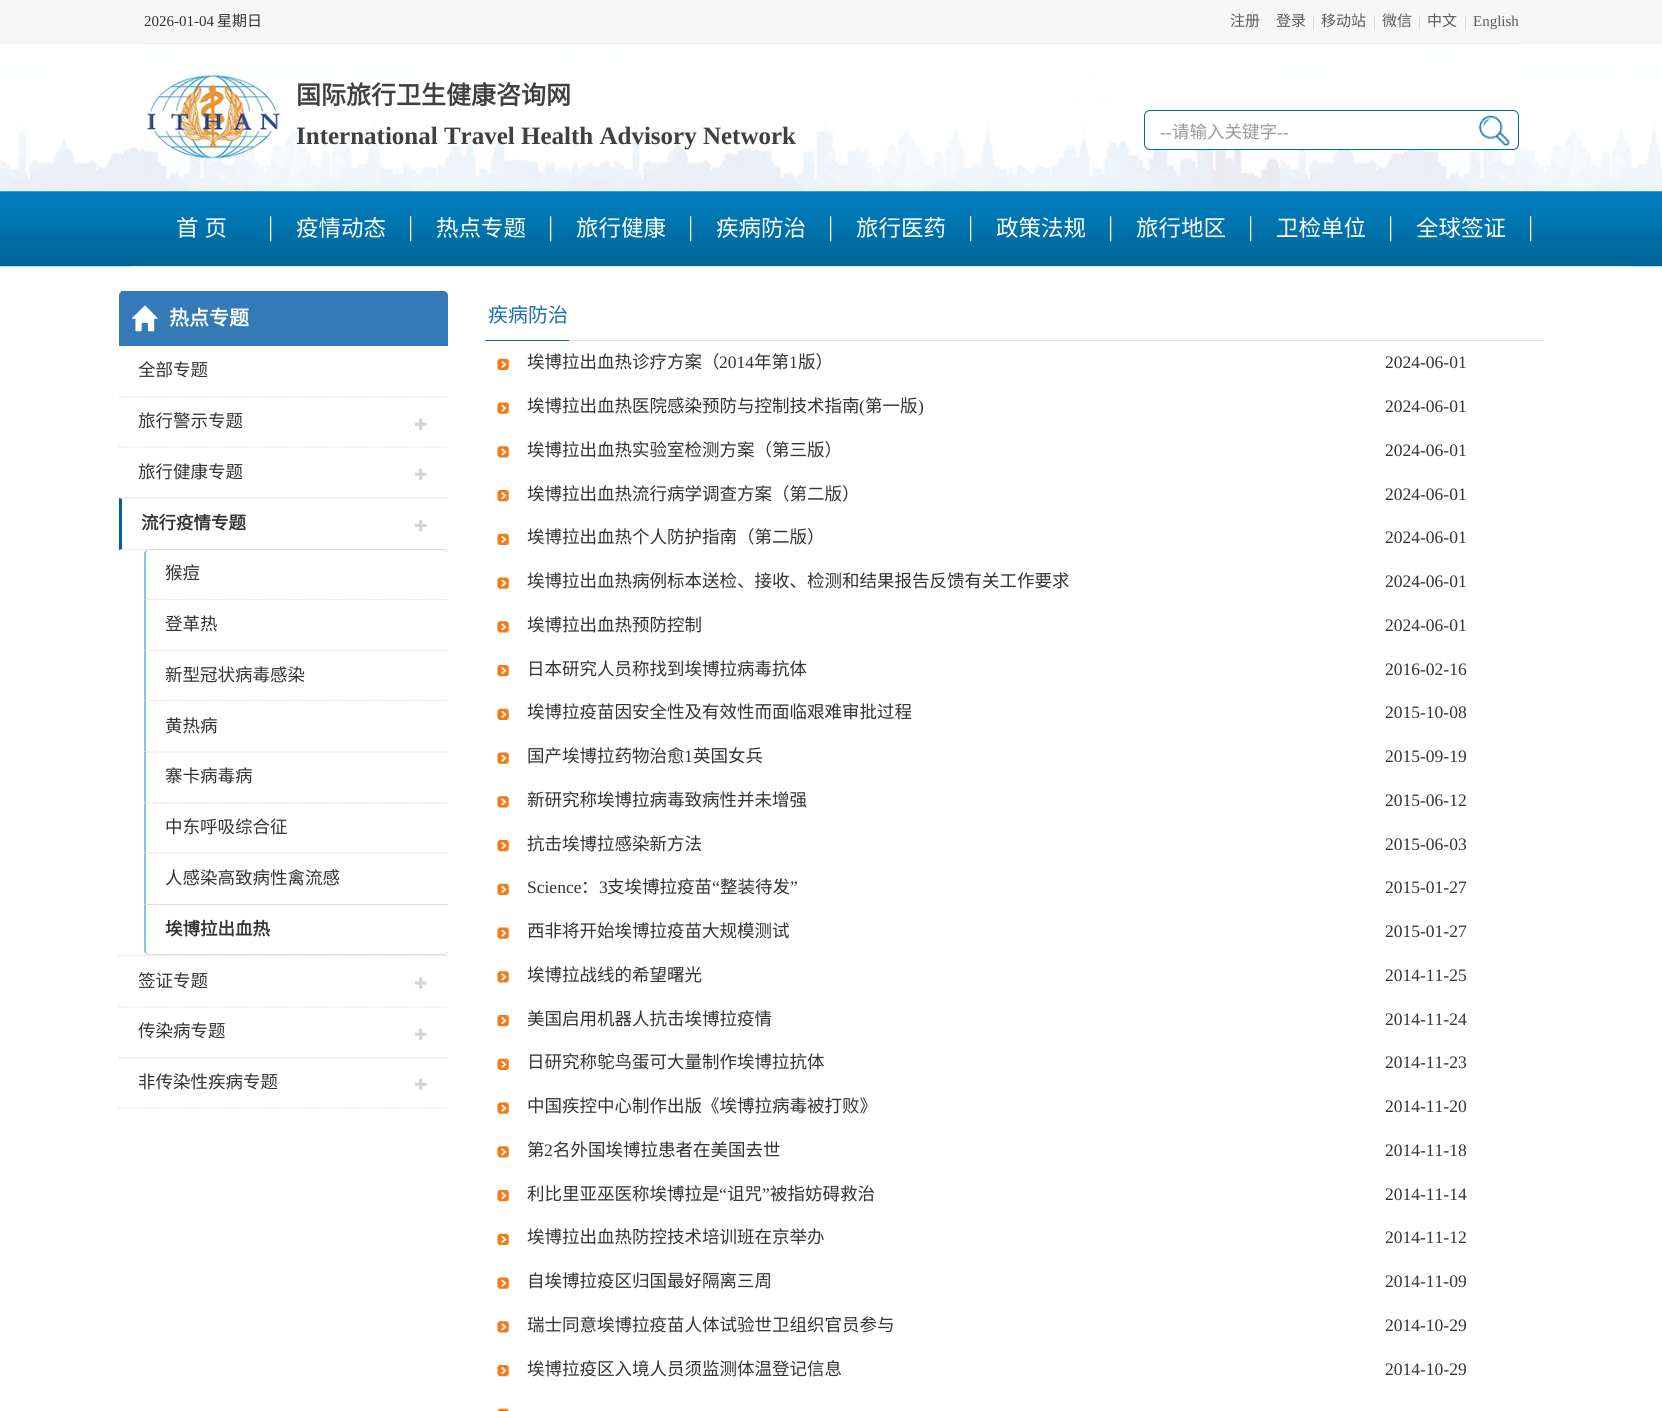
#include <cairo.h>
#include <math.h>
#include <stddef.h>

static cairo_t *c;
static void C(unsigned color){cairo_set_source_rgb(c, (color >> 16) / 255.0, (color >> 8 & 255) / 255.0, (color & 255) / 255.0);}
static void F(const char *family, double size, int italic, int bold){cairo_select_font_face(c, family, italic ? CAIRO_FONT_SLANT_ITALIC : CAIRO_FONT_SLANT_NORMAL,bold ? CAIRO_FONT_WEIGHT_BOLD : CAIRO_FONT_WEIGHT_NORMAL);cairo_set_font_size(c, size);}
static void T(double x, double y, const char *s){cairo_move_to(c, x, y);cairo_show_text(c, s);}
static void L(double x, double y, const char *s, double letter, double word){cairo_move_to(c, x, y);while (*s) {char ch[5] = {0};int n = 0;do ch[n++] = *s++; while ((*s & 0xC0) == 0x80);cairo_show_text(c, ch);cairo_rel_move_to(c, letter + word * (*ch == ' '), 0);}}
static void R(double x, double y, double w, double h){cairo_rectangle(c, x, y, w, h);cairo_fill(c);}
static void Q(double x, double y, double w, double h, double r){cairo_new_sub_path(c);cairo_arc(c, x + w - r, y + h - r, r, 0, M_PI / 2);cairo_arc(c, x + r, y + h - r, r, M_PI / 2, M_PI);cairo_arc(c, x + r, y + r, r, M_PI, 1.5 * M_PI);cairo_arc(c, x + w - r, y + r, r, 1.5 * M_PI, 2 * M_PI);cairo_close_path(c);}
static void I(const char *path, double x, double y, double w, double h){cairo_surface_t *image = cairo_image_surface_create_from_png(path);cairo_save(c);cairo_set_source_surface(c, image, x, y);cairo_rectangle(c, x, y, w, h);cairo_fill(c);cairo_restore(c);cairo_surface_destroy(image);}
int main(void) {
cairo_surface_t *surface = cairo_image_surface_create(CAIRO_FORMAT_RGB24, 1662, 1411);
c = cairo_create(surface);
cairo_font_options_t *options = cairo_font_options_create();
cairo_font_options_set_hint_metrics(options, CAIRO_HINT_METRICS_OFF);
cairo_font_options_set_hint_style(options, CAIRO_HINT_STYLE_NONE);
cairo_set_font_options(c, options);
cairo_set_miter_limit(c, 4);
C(0xffffff);
cairo_paint(c);
I("1.png",0,44,1662,147);
C(0xf7f7f7);
R(0,0,1662,44);
C(0xeeeeee);
R(144,43,1375,1);
F("Liberation Serif",15,0,0);
C(0x333333);
T(144,26,"2026-01-04");
F("Noto Sans CJK SC",15,0,0);
T(217,26,"星期日");
C(0x5a5a5a);
T(1230,26,"注册");
T(1276,26,"登录");
F("Liberation Serif",15,0,0);
C(0xd3d3d3);
T(1312,26,"|");
F("Noto Sans CJK SC",15,0,0);
C(0x5a5a5a);
T(1321,26,"移动站");
F("Liberation Serif",15,0,0);
C(0xd3d3d3);
T(1373,26,"|");
F("Noto Sans CJK SC",15,0,0);
C(0x5a5a5a);
T(1382,26,"微信");
F("Liberation Serif",15,0,0);
C(0xd3d3d3);
T(1418,26,"|");
F("Noto Sans CJK SC",15,0,0);
C(0x5a5a5a);
T(1427,26,"中文");
F("Liberation Serif",15,0,0);
C(0xd3d3d3);
T(1464,26,"|");
C(0x5a5a5a);
T(1473,26,"English");
I("2.png",147,74,134,85);
F("Noto Sans CJK SC",25,0,1);
C(0x404040);
T(296,104,"国际旅行卫生健康咨询网");
F("Liberation Serif",25,0,1);
T(296,144,"International Travel Health Advisory Network");
C(0xffffff);
Q(1144.5,110.5,374,39,5.5);
cairo_fill_preserve(c);
C(0x006699);
cairo_set_line_width(c,1);
cairo_stroke(c);
F("Liberation Serif",17.5,0,0);
C(0x999999);
T(1160,138,"--");
F("Noto Sans CJK SC",17.5,0,0);
T(1172,138,"请输入关键字");
F("Liberation Serif",17.5,0,0);
T(1277,138,"--");
I("3.png",1478,115,33,32);
I("4.png",0,191,1662,76);
C(0xe5e5e5);
R(131,266,1500,1);
I("5.png",270,216,2,26);
F("Noto Sans CJK SC",22.5,0,0);
C(0xffffff);
L(176,236,"首 页",0,1);
I("5.png",410,216,2,26);
T(296,236,"疫情动态");
I("5.png",550,216,2,26);
T(436,236,"热点专题");
I("5.png",690,216,2,26);
T(576,236,"旅行健康");
I("5.png",830,216,2,26);
T(716,236,"疾病防治");
I("5.png",970,216,2,26);
T(856,236,"旅行医药");
I("5.png",1110,216,2,26);
T(996,236,"政策法规");
I("5.png",1250,216,2,26);
T(1136,236,"旅行地区");
I("5.png",1390,216,2,26);
T(1276,236,"卫检单位");
I("5.png",1530,216,2,26);
T(1416,236,"全球签证");
cairo_new_path(c);
cairo_move_to(c,119,345.5);
cairo_line_to(c,447.5,345.5);
C(0xdddddd);
cairo_set_line_width(c,1.2);
cairo_set_dash(c,(double[]){1.25,1.25},2,0);
cairo_stroke(c);
C(0x337ab7);
cairo_new_path(c);
cairo_move_to(c,124,291);
cairo_line_to(c,443,291);
cairo_curve_to(c,446,291,448,293,448,296);
cairo_line_to(c,448,346);
cairo_line_to(c,119,346);
cairo_line_to(c,119,296);
cairo_curve_to(c,119,293,121,291,124,291);
cairo_close_path(c);
cairo_fill(c);
R(121,291,324,1);
I("6.png",131,305,27,27);
F("Noto Sans CJK SC",20,0,1);
C(0xffffff);
T(169,325,"热点专题");
F("Noto Sans CJK SC",17.5,0,0);
C(0x333333);
T(138,376,"全部专题");
cairo_new_path(c);
cairo_move_to(c,119,397);
cairo_line_to(c,447.5,397);
C(0xdddddd);
cairo_stroke(c);
C(0x333333);
T(138,427,"旅行警示专题");
I("7.png",415,418,12,12);
cairo_new_path(c);
cairo_move_to(c,119,447);
cairo_line_to(c,447.5,447);
C(0xdddddd);
cairo_stroke(c);
cairo_new_path(c);
cairo_move_to(c,119,498);
cairo_line_to(c,447.5,498);
cairo_stroke(c);
C(0x333333);
T(138,478,"旅行健康专题");
I("7.png",415,468,12,12);
C(0xffffff);
R(119,498,329,1);
cairo_new_path(c);
cairo_move_to(c,119,498);
cairo_line_to(c,447.5,498);
C(0xdddddd);
cairo_stroke(c);
cairo_new_path(c);
cairo_move_to(c,119,549.5);
cairo_line_to(c,447.5,549.5);
cairo_stroke(c);
C(0x005eaa);
cairo_new_path(c);
cairo_move_to(c,119,550);
cairo_line_to(c,119,498);
cairo_line_to(c,122,499);
cairo_line_to(c,122,549);
cairo_close_path(c);
cairo_fill(c);
F("Noto Sans CJK SC",17.5,0,1);
C(0x333333);
T(141,529,"流行疫情专题");
I("8.png",415,519,12,13);
C(0xffffff);
cairo_new_path(c);
cairo_move_to(c,149,549);
cairo_line_to(c,443,549);
cairo_curve_to(c,446,549,448,551,448,554);
cairo_line_to(c,448,600);
cairo_line_to(c,144,600);
cairo_line_to(c,144,554);
cairo_curve_to(c,144,551,146,549,149,549);
cairo_close_path(c);
cairo_fill(c);
C(0xdddddd);
cairo_new_path(c);
cairo_move_to(c,149,549);
cairo_line_to(c,442,549);
cairo_curve_to(c,444,549,447,550,448,552);
cairo_line_to(c,448,553);
cairo_curve_to(c,446,551,444,550,442,550);
cairo_line_to(c,149,550);
cairo_line_to(c,147,551);
cairo_line_to(c,146,550);
cairo_close_path(c);
cairo_fill(c);
C(0x88c3ea);
cairo_new_path(c);
cairo_move_to(c,146,599);
cairo_line_to(c,144,600);
cairo_line_to(c,144,554);
cairo_curve_to(c,144,552,145,551,146,550);
cairo_line_to(c,147,551);
cairo_curve_to(c,146,551,146,553,146,554);
cairo_close_path(c);
cairo_fill(c);
F("Noto Sans CJK SC",17.5,0,0);
C(0x333333);
T(165,579,"猴痘");
C(0xffffff);
R(145,599,1,1);
cairo_new_path(c);
cairo_move_to(c,144,599.5);
cairo_line_to(c,447.5,599.5);
C(0xdddddd);
cairo_stroke(c);
cairo_new_path(c);
cairo_move_to(c,144,650.5);
cairo_line_to(c,447.5,650.5);
cairo_stroke(c);
C(0x88c3ea);
cairo_new_path(c);
cairo_move_to(c,144,651);
cairo_line_to(c,144,599);
cairo_line_to(c,146,600);
cairo_line_to(c,146,650);
cairo_close_path(c);
cairo_fill(c);
C(0x333333);
T(165,630,"登革热");
C(0xffffff);
R(145,650,303,2);
cairo_new_path(c);
cairo_move_to(c,144,650.5);
cairo_line_to(c,447.5,650.5);
C(0xdddddd);
cairo_stroke(c);
cairo_new_path(c);
cairo_move_to(c,144,700.5);
cairo_line_to(c,447.5,700.5);
cairo_stroke(c);
C(0x88c3ea);
cairo_new_path(c);
cairo_move_to(c,144,701);
cairo_line_to(c,144,650);
cairo_line_to(c,146,651);
cairo_line_to(c,146,700);
cairo_close_path(c);
cairo_fill(c);
C(0x333333);
T(165,681,"新型冠状病毒感染");
C(0xffffff);
R(145,700,303,2);
cairo_new_path(c);
cairo_move_to(c,144,700.5);
cairo_line_to(c,447.5,700.5);
C(0xdddddd);
cairo_stroke(c);
C(0x88c3ea);
cairo_new_path(c);
cairo_move_to(c,144,752);
cairo_line_to(c,144,700);
cairo_line_to(c,146,701);
cairo_line_to(c,146,751);
cairo_close_path(c);
cairo_fill(c);
C(0x333333);
T(165,732,"黄热病");
C(0xffffff);
R(144,751,2,1);
cairo_new_path(c);
cairo_move_to(c,144,752);
cairo_line_to(c,447.5,752);
C(0xdddddd);
cairo_stroke(c);
cairo_new_path(c);
cairo_move_to(c,144,803);
cairo_line_to(c,447.5,803);
cairo_stroke(c);
C(0x88c3ea);
cairo_new_path(c);
cairo_move_to(c,144,804);
cairo_line_to(c,144,751);
cairo_line_to(c,146,752);
cairo_line_to(c,146,802);
cairo_close_path(c);
cairo_fill(c);
C(0x333333);
T(165,782,"寨卡病毒病");
C(0xffffff);
R(145,803,303,1);
cairo_new_path(c);
cairo_move_to(c,144,803);
cairo_line_to(c,447.5,803);
C(0xdddddd);
cairo_stroke(c);
cairo_new_path(c);
cairo_move_to(c,144,853);
cairo_line_to(c,447.5,853);
cairo_stroke(c);
C(0x88c3ea);
cairo_new_path(c);
cairo_move_to(c,144,854);
cairo_line_to(c,144,802);
cairo_line_to(c,146,804);
cairo_line_to(c,146,852);
cairo_close_path(c);
cairo_fill(c);
C(0x333333);
T(165,833,"中东呼吸综合征");
C(0xffffff);
R(145,853,303,1);
cairo_new_path(c);
cairo_move_to(c,144,853);
cairo_line_to(c,447.5,853);
C(0xdddddd);
cairo_stroke(c);
cairo_new_path(c);
cairo_move_to(c,144,904.5);
cairo_line_to(c,447.5,904.5);
cairo_stroke(c);
C(0x88c3ea);
cairo_new_path(c);
cairo_move_to(c,144,905);
cairo_line_to(c,144,852);
cairo_line_to(c,146,854);
cairo_line_to(c,146,904);
cairo_close_path(c);
cairo_fill(c);
C(0x333333);
T(165,884,"人感染高致病性禽流感");
C(0xffffff);
cairo_new_path(c);
cairo_move_to(c,144,904);
cairo_line_to(c,448,904);
cairo_line_to(c,448,950);
cairo_curve_to(c,448,953,446,955,443,955);
cairo_line_to(c,149,955);
cairo_curve_to(c,146,955,144,953,144,950);
cairo_close_path(c);
cairo_fill(c);
C(0xdddddd);
cairo_new_path(c);
cairo_move_to(c,146,905);
cairo_line_to(c,144,904);
cairo_line_to(c,448,904);
cairo_line_to(c,448,905);
cairo_close_path(c);
cairo_fill(c);
cairo_new_path(c);
cairo_move_to(c,149,955);
cairo_line_to(c,442,955);
cairo_curve_to(c,444,955,447,954,448,952);
cairo_line_to(c,448,951);
cairo_curve_to(c,447,953,444,954,442,954);
cairo_line_to(c,149,954);
cairo_line_to(c,147,953);
cairo_line_to(c,146,954);
cairo_close_path(c);
cairo_fill(c);
C(0x88c3ea);
cairo_new_path(c);
cairo_move_to(c,144,904);
cairo_line_to(c,146,905);
cairo_line_to(c,146,950);
cairo_curve_to(c,146,951,146,953,147,953);
cairo_line_to(c,146,954);
cairo_curve_to(c,145,953,144,952,144,950);
cairo_close_path(c);
cairo_fill(c);
F("Noto Sans CJK SC",17.5,0,1);
C(0x333333);
T(165,935,"埃博拉出血热");
cairo_new_path(c);
cairo_move_to(c,119,955.5);
cairo_line_to(c,447.5,955.5);
C(0xdddddd);
cairo_stroke(c);
F("Noto Sans CJK SC",17.5,0,0);
C(0x333333);
T(138,987,"签证专题");
I("9.png",415,977,12,12);
cairo_new_path(c);
cairo_move_to(c,119,1007);
cairo_line_to(c,447.5,1007);
C(0xdddddd);
cairo_stroke(c);
cairo_new_path(c);
cairo_move_to(c,119,1058);
cairo_line_to(c,447.5,1058);
cairo_stroke(c);
C(0x333333);
T(138,1037,"传染病专题");
I("7.png",415,1028,12,12);
C(0xffffff);
R(119,1058,329,1);
cairo_new_path(c);
cairo_move_to(c,119,1058);
cairo_line_to(c,447.5,1058);
C(0xdddddd);
cairo_stroke(c);
cairo_new_path(c);
cairo_move_to(c,119,1108);
cairo_line_to(c,447.5,1108);
cairo_stroke(c);
C(0x333333);
T(138,1088,"非传染性疾病专题");
I("7.png",415,1078,12,12);
C(0xdedede);
R(569,340,975,1);
C(0x146ba0);
R(485,340,84,1);
F("Noto Sans CJK SC",20,0,0);
C(0x206fac);
T(488,322,"疾病防治");
I("10.png",497,358,12,12);
F("Noto Sans CJK SC",17.5,0,0);
C(0x333333);
T(527,368,"埃博拉出血热诊疗方案（");
F("Liberation Serif",17.5,0,0);
T(719,368,"2014");
F("Noto Sans CJK SC",17.5,0,0);
T(754,368,"年第");
F("Liberation Serif",17.5,0,0);
T(789,368,"1");
F("Noto Sans CJK SC",17.5,0,0);
T(798,368,"版）");
F("Liberation Serif",17.5,0,0);
T(1385,368,"2024-06-01");
I("11.png",497,402,12,12);
F("Noto Sans CJK SC",17.5,0,0);
T(527,412,"埃博拉出血热医院感染预防与控制技术指南");
F("Liberation Serif",17.5,0,0);
T(859,412,"(");
F("Noto Sans CJK SC",17.5,0,0);
T(865,412,"第一版");
F("Liberation Serif",17.5,0,0);
T(918,412,")");
T(1385,412,"2024-06-01");
I("12.png",497,446,12,12);
F("Noto Sans CJK SC",17.5,0,0);
T(527,456,"埃博拉出血热实验室检测方案（第三版）");
F("Liberation Serif",17.5,0,0);
T(1385,456,"2024-06-01");
I("13.png",497,490,12,12);
F("Noto Sans CJK SC",17.5,0,0);
T(527,500,"埃博拉出血热流行病学调查方案（第二版）");
F("Liberation Serif",17.5,0,0);
T(1385,500,"2024-06-01");
I("10.png",497,533,12,12);
F("Noto Sans CJK SC",17.5,0,0);
T(527,543,"埃博拉出血热个人防护指南（第二版）");
F("Liberation Serif",17.5,0,0);
T(1385,543,"2024-06-01");
I("11.png",497,577,12,12);
F("Noto Sans CJK SC",17.5,0,0);
T(527,587,"埃博拉出血热病例标本送检、接收、检测和结果报告反馈有关工作要求");
F("Liberation Serif",17.5,0,0);
T(1385,587,"2024-06-01");
I("12.png",497,621,12,12);
F("Noto Sans CJK SC",17.5,0,0);
T(527,631,"埃博拉出血热预防控制");
F("Liberation Serif",17.5,0,0);
T(1385,631,"2024-06-01");
I("13.png",497,665,12,12);
F("Noto Sans CJK SC",17.5,0,0);
T(527,675,"日本研究人员称找到埃博拉病毒抗体");
F("Liberation Serif",17.5,0,0);
T(1385,675,"2016-02-16");
I("10.png",497,708,12,12);
F("Noto Sans CJK SC",17.5,0,0);
T(527,718,"埃博拉疫苗因安全性及有效性而面临艰难审批过程");
F("Liberation Serif",17.5,0,0);
T(1385,718,"2015-10-08");
I("11.png",497,752,12,12);
F("Noto Sans CJK SC",17.5,0,0);
T(527,762,"国产埃博拉药物治愈");
F("Liberation Serif",17.5,0,0);
T(684,762,"1");
F("Noto Sans CJK SC",17.5,0,0);
T(693,762,"英国女兵");
F("Liberation Serif",17.5,0,0);
T(1385,762,"2015-09-19");
I("12.png",497,796,12,12);
F("Noto Sans CJK SC",17.5,0,0);
T(527,806,"新研究称埃博拉病毒致病性并未增强");
F("Liberation Serif",17.5,0,0);
T(1385,806,"2015-06-12");
I("13.png",497,840,12,12);
F("Noto Sans CJK SC",17.5,0,0);
T(527,850,"抗击埃博拉感染新方法");
F("Liberation Serif",17.5,0,0);
T(1385,850,"2015-06-03");
I("10.png",497,883,12,12);
T(527,893,"Science");
F("Noto Sans CJK SC",17.5,0,0);
T(581,893,"：");
F("Liberation Serif",17.5,0,0);
T(599,893,"3");
F("Noto Sans CJK SC",17.5,0,0);
T(607,893,"支埃博拉疫苗");
F("Liberation Serif",17.5,0,0);
T(712,893,"“");
F("Noto Sans CJK SC",17.5,0,0);
T(720,893,"整装待发");
F("Liberation Serif",17.5,0,0);
T(790,893,"”");
T(1385,893,"2015-01-27");
I("11.png",497,927,12,12);
F("Noto Sans CJK SC",17.5,0,0);
T(527,937,"西非将开始埃博拉疫苗大规模测试");
F("Liberation Serif",17.5,0,0);
T(1385,937,"2015-01-27");
I("12.png",497,971,12,12);
F("Noto Sans CJK SC",17.5,0,0);
T(527,981,"埃博拉战线的希望曙光");
F("Liberation Serif",17.5,0,0);
T(1385,981,"2014-11-25");
I("13.png",497,1015,12,12);
F("Noto Sans CJK SC",17.5,0,0);
T(527,1025,"美国启用机器人抗击埃博拉疫情");
F("Liberation Serif",17.5,0,0);
T(1385,1025,"2014-11-24");
I("10.png",497,1058,12,12);
F("Noto Sans CJK SC",17.5,0,0);
T(527,1068,"日研究称鸵鸟蛋可大量制作埃博拉抗体");
F("Liberation Serif",17.5,0,0);
T(1385,1068,"2014-11-23");
I("11.png",497,1102,12,12);
F("Noto Sans CJK SC",17.5,0,0);
T(527,1112,"中国疾控中心制作出版《埃博拉病毒被打败》");
F("Liberation Serif",17.5,0,0);
T(1385,1112,"2014-11-20");
I("12.png",497,1146,12,12);
F("Noto Sans CJK SC",17.5,0,0);
T(527,1156,"第");
F("Liberation Serif",17.5,0,0);
T(544,1156,"2");
F("Noto Sans CJK SC",17.5,0,0);
T(553,1156,"名外国埃博拉患者在美国去世");
F("Liberation Serif",17.5,0,0);
T(1385,1156,"2014-11-18");
I("13.png",497,1190,12,12);
F("Noto Sans CJK SC",17.5,0,0);
T(527,1200,"利比里亚巫医称埃博拉是");
F("Liberation Serif",17.5,0,0);
T(719,1200,"“");
F("Noto Sans CJK SC",17.5,0,0);
T(727,1200,"诅咒");
F("Liberation Serif",17.5,0,0);
T(762,1200,"”");
F("Noto Sans CJK SC",17.5,0,0);
T(770,1200,"被指妨碍救治");
F("Liberation Serif",17.5,0,0);
T(1385,1200,"2014-11-14");
I("10.png",497,1233,12,12);
F("Noto Sans CJK SC",17.5,0,0);
T(527,1243,"埃博拉出血热防控技术培训班在京举办");
F("Liberation Serif",17.5,0,0);
T(1385,1243,"2014-11-12");
I("11.png",497,1277,12,12);
F("Noto Sans CJK SC",17.5,0,0);
T(527,1287,"自埃博拉疫区归国最好隔离三周");
F("Liberation Serif",17.5,0,0);
T(1385,1287,"2014-11-09");
I("12.png",497,1321,12,12);
F("Noto Sans CJK SC",17.5,0,0);
T(527,1331,"瑞士同意埃博拉疫苗人体试验世卫组织官员参与");
F("Liberation Serif",17.5,0,0);
T(1385,1331,"2014-10-29");
I("13.png",497,1365,12,12);
F("Noto Sans CJK SC",17.5,0,0);
T(527,1375,"埃博拉疫区入境人员须监测体温登记信息");
F("Liberation Serif",17.5,0,0);
T(1385,1375,"2014-10-29");
I("14.png",497,1408,12,3);
cairo_surface_write_to_png(surface, "o.png");
cairo_font_options_destroy(options);
cairo_destroy(c);
cairo_surface_destroy(surface);
return 0;
}
